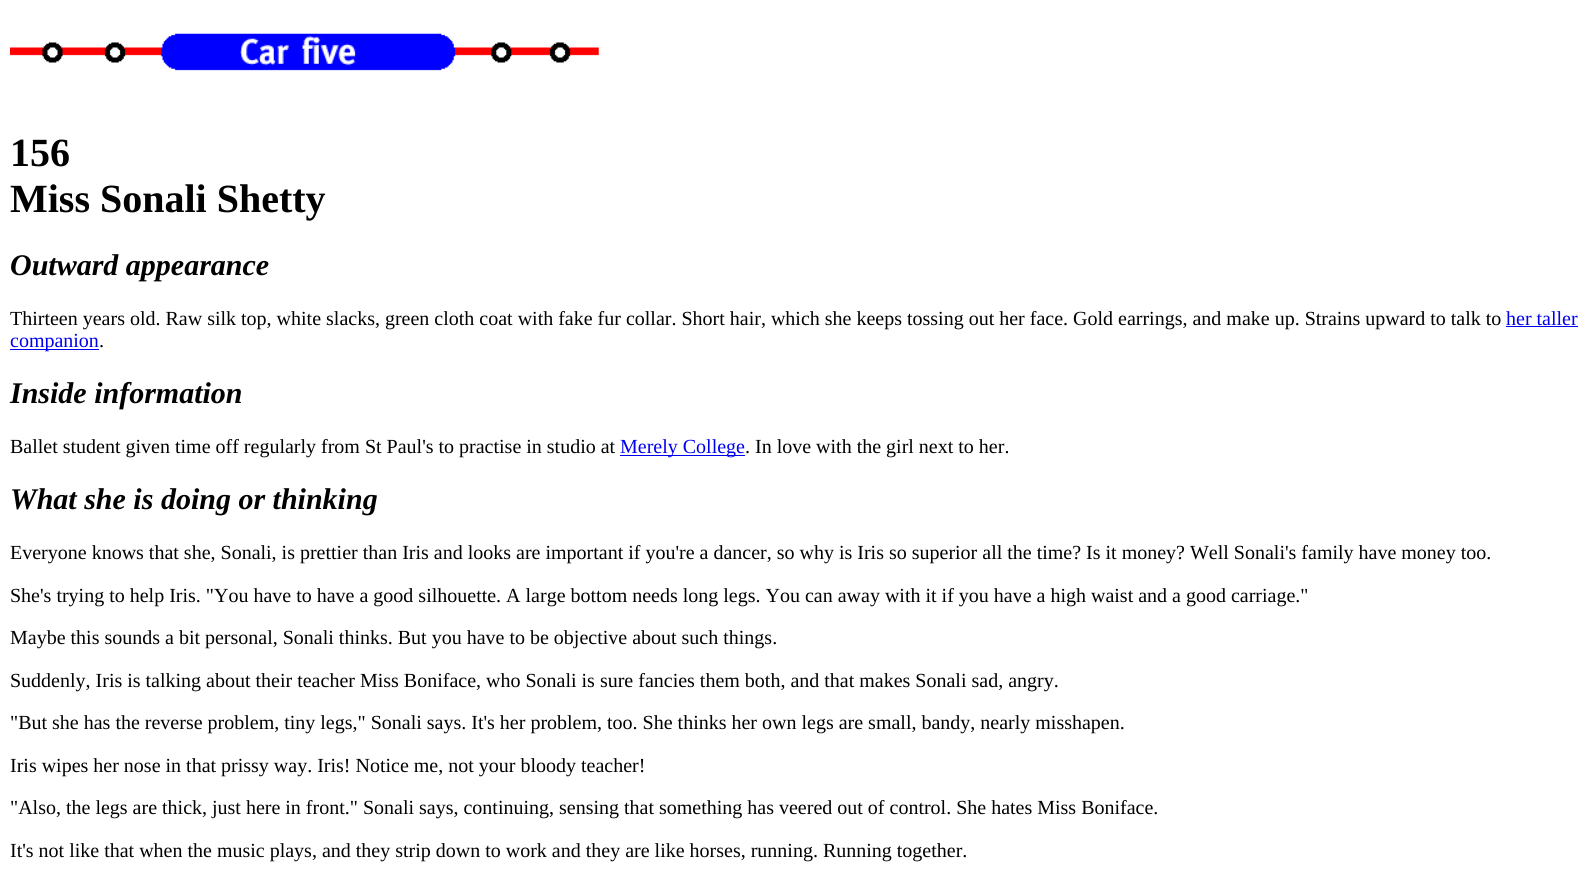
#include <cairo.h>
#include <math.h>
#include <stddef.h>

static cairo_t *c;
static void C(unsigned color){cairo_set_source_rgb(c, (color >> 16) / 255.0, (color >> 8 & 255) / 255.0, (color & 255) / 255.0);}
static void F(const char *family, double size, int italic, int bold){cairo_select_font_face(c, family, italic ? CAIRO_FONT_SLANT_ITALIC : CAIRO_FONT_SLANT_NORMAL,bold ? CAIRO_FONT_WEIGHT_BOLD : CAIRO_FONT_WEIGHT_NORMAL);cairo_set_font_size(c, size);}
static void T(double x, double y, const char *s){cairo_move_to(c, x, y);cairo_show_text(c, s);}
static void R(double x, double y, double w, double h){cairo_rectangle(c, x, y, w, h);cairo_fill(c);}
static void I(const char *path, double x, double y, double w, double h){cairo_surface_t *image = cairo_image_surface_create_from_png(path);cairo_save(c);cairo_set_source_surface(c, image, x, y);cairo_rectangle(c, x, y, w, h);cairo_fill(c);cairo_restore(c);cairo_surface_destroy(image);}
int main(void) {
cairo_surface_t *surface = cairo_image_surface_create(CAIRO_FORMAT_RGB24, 1594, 870);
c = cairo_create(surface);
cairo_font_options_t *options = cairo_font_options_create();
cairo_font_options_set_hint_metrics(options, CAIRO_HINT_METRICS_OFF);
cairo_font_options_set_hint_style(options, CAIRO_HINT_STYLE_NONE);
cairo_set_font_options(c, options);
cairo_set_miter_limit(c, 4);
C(0xffffff);
cairo_paint(c);
I("1.png",10,33,589,38);
F("Liberation Serif",40,0,1);
C(0x000000);
T(10,166,"156");
T(10,212,"Miss Sonali Shetty");
F("Liberation Serif",30,1,1);
T(10,275,"Outward appearance");
F("Liberation Serif",20,0,0);
T(10,325,"Thirteen years old. Raw silk top, white slacks, green cloth coat with fake fur collar. Short hair, which she keeps tossing out her face. Gold earrings, and make up. Strains upward to talk to");
C(0x0000ee);
T(1506,325,"her taller");
R(1506,326,72,1);
R(10,349,89,1);
T(10,347,"companion");
C(0x000000);
T(99,347,".");
F("Liberation Serif",30,1,1);
T(10,403,"Inside information");
F("Liberation Serif",20,0,0);
T(10,453,"Ballet student given time off regularly from St Paul's to practise in studio at");
C(0x0000ee);
R(620,455,125,1);
T(620,453,"Merely College");
C(0x000000);
T(745,453,". In love with the girl next to her.");
F("Liberation Serif",30,1,1);
T(10,509,"What she is doing or thinking");
F("Liberation Serif",20,0,0);
T(10,559,"Everyone knows that she, Sonali, is prettier than Iris and looks are important if you're a dancer, so why is Iris so superior all the time? Is it money? Well Sonali's family have money too.");
T(10,602,"She's trying to help Iris. \"You have to have a good silhouette. A large bottom needs long legs. You can away with it if you have a high waist and a good carriage.\"");
T(10,644,"Maybe this sounds a bit personal, Sonali thinks. But you have to be objective about such things.");
T(10,687,"Suddenly, Iris is talking about their teacher Miss Boniface, who Sonali is sure fancies them both, and that makes Sonali sad, angry.");
T(10,729,"\"But she has the reverse problem, tiny legs,\" Sonali says. It's her problem, too. She thinks her own legs are small, bandy, nearly misshapen.");
T(10,772,"Iris wipes her nose in that prissy way. Iris! Notice me, not your bloody teacher!");
T(10,814,"\"Also, the legs are thick, just here in front.\" Sonali says, continuing, sensing that something has veered out of control. She hates Miss Boniface.");
T(10,857,"It's not like that when the music plays, and they strip down to work and they are like horses, running. Running together.");
cairo_surface_write_to_png(surface, "o.png");
cairo_font_options_destroy(options);
cairo_destroy(c);
cairo_surface_destroy(surface);
return 0;
}
